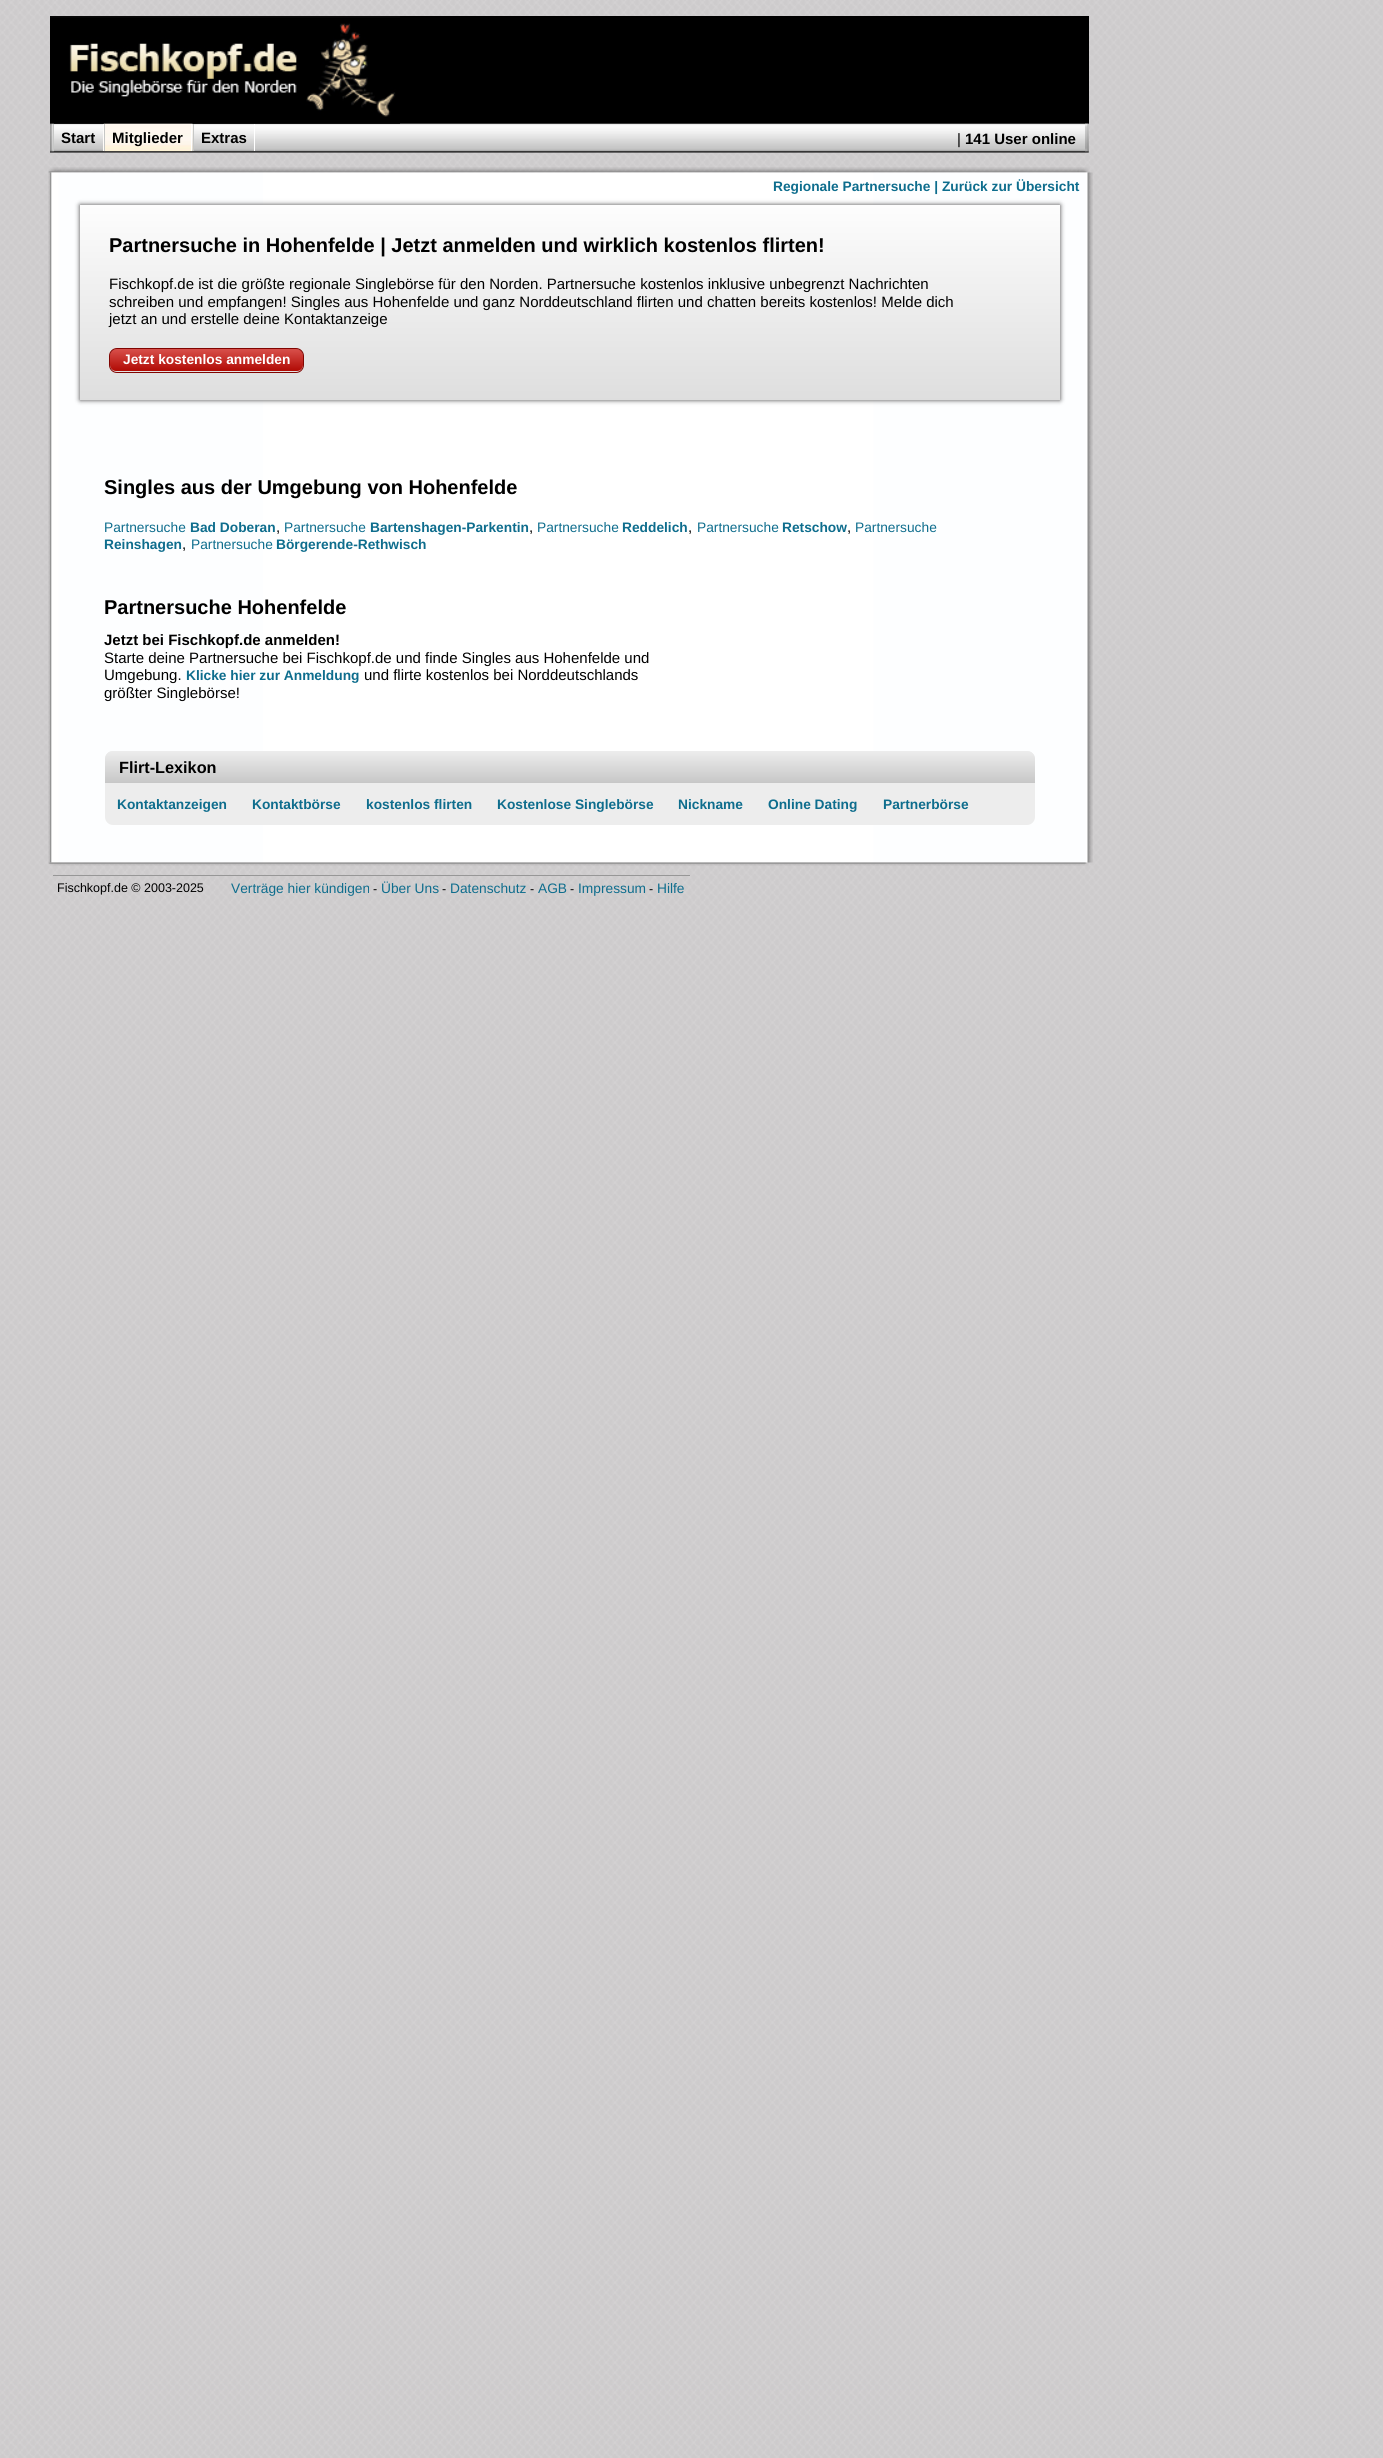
#include <cairo.h>
#include <math.h>
#include <stddef.h>

static cairo_t *c;
static void C(unsigned color){cairo_set_source_rgb(c, (color >> 16) / 255.0, (color >> 8 & 255) / 255.0, (color & 255) / 255.0);}
static void F(const char *family, double size, int italic, int bold){cairo_select_font_face(c, family, italic ? CAIRO_FONT_SLANT_ITALIC : CAIRO_FONT_SLANT_NORMAL,bold ? CAIRO_FONT_WEIGHT_BOLD : CAIRO_FONT_WEIGHT_NORMAL);cairo_set_font_size(c, size);}
static void T(double x, double y, const char *s){cairo_move_to(c, x, y);cairo_show_text(c, s);}
static void R(double x, double y, double w, double h){cairo_rectangle(c, x, y, w, h);cairo_fill(c);}
static void Q(double x, double y, double w, double h, double r){cairo_new_sub_path(c);cairo_arc(c, x + w - r, y + h - r, r, 0, M_PI / 2);cairo_arc(c, x + r, y + h - r, r, M_PI / 2, M_PI);cairo_arc(c, x + r, y + r, r, M_PI, 1.5 * M_PI);cairo_arc(c, x + w - r, y + r, r, 1.5 * M_PI, 2 * M_PI);cairo_close_path(c);}
static void S(double x, double y, double w, double h, double r, double blur, double alpha){cairo_push_group_with_content(c, CAIRO_CONTENT_ALPHA);cairo_set_operator(c, CAIRO_OPERATOR_SOURCE);for (int i = 15; i >= -15 && fmin(w, h) + blur * i / 3 > 0; i -= 2) {double e = blur * i / 6;cairo_set_source_rgba(c, 0, 0, 0, alpha * erfc((i - 1) / 8.5) / 2);Q(x - e, y - e, w + 2 * e, h + 2 * e, fmax(0, fmin(r + e + blur * .6, fmin(w, h) / 2 + e)));cairo_fill(c);}cairo_pattern_t *soft = cairo_pop_group(c);cairo_mask(c, soft);cairo_pattern_destroy(soft);}
static void I(const char *path, double x, double y, double w, double h){cairo_surface_t *image = cairo_image_surface_create_from_png(path);cairo_save(c);cairo_set_source_surface(c, image, x, y);cairo_rectangle(c, x, y, w, h);cairo_fill(c);cairo_restore(c);cairo_surface_destroy(image);}
int main(void) {
cairo_surface_t *surface = cairo_image_surface_create(CAIRO_FORMAT_RGB24, 1383, 2458);
c = cairo_create(surface);
cairo_font_options_t *options = cairo_font_options_create();
cairo_font_options_set_hint_metrics(options, CAIRO_HINT_METRICS_OFF);
cairo_font_options_set_hint_style(options, CAIRO_HINT_STYLE_NONE);
cairo_set_font_options(c, options);
cairo_set_miter_limit(c, 4);
cairo_pattern_t *gradient;
C(0xffffff);
cairo_paint(c);
I("1.png",0,0,1383,2458);
C(0x000000);
R(50,16,1039,108);
I("3.png",50,123,1039,30);
I("2.png",50,16,350,108);
I("4.png",50,123,4,29);
C(0xffffff);
R(103,124,1,27);
C(0xc6c7c6);
R(53,124,1,27);
F("Liberation Sans",15,0,1);
C(0x000000);
T(61,143,"Start");
I("5.png",103,123,90,29);
C(0xffffff);
R(191,124,1,27);
C(0xc6c7c6);
R(104,124,1,27);
C(0x000000);
T(112,143,"Mitglieder");
C(0xffffff);
R(254,124,1,27);
C(0xc6c7c6);
R(193,124,1,27);
C(0x000000);
T(201,143,"Extras");
I("6.png",1085,123,4,29);
F("Liberation Sans",15,0,0);
T(957,144,"|");
F("Liberation Sans",15,0,1);
T(965,144,"141 User online");
I("7.png",48,167,1042,6);
I("8.png",48,172,1045,691);
F("Liberation Sans",13.75,0,1);
C(0x0e6d8d);
T(773,191,"Regionale Partnersuche | Zurück zur Übersicht");
C(0x444444);
S(80,205,980,195,0,2.5,1);
gradient = cairo_pattern_create_linear(570,205,570,400);
cairo_pattern_add_color_stop_rgba(gradient,0,0.992,0.992,0.992,1);
cairo_pattern_add_color_stop_rgba(gradient,1,0.871,0.871,0.871,1);
cairo_set_source(c,gradient);
cairo_pattern_destroy(gradient);
R(80,205,980,195);
F("Liberation Sans",20,0,1);
C(0x000000);
T(109,252,"Partnersuche in Hohenfelde | Jetzt anmelden und wirklich kostenlos flirten!");
F("Liberation Sans",15,0,0);
T(109,289,"Fischkopf.de ist die größte regionale Singlebörse für den Norden. Partnersuche kostenlos inklusive unbegrenzt Nachrichten");
T(109,307,"schreiben und empfangen! Singles aus Hohenfelde und ganz Norddeutschland flirten und chatten bereits kostenlos! Melde dich");
T(109,324,"jetzt an und erstelle deine Kontaktanzeige");
gradient = cairo_pattern_create_linear(206,349,206,371);
cairo_pattern_add_color_stop_rgba(gradient,0,0.847,0.314,0.294,1);
cairo_pattern_add_color_stop_rgba(gradient,1,0.694,0.039,0.016,1);
cairo_set_source(c,gradient);
cairo_pattern_destroy(gradient);
Q(110,349,193,22,6);
cairo_fill(c);
Q(109.5,348.5,194,24,7.5);
C(0x810501);
cairo_set_line_width(c,1);
cairo_stroke(c);
F("Liberation Sans",13.75,0,1);
C(0xffffff);
T(123,364,"Jetzt kostenlos anmelden");
F("Liberation Sans",20,0,1);
C(0x000000);
T(104,494,"Singles aus der Umgebung von Hohenfelde");
F("Liberation Sans",13.75,0,0);
C(0x0e6d8d);
T(104,532,"Partnersuche");
F("Liberation Sans",13.75,0,1);
T(190,532,"Bad Doberan");
F("Liberation Sans",15,0,0);
C(0x000000);
T(276,532,",");
F("Liberation Sans",13.75,0,0);
C(0x0e6d8d);
T(284,532,"Partnersuche");
F("Liberation Sans",13.75,0,1);
T(370,532,"Bartenshagen-Parkentin");
F("Liberation Sans",15,0,0);
C(0x000000);
T(529,532,",");
F("Liberation Sans",13.75,0,0);
C(0x0e6d8d);
T(537,532,"Partnersuche");
F("Liberation Sans",13.75,0,1);
T(622,532,"Reddelich");
F("Liberation Sans",15,0,0);
C(0x000000);
T(688,532,",");
F("Liberation Sans",13.75,0,0);
C(0x0e6d8d);
T(697,532,"Partnersuche");
F("Liberation Sans",13.75,0,1);
T(782,532,"Retschow");
F("Liberation Sans",15,0,0);
C(0x000000);
T(847,532,",");
F("Liberation Sans",13.75,0,0);
C(0x0e6d8d);
T(855,532,"Partnersuche");
F("Liberation Sans",13.75,0,1);
T(104,549,"Reinshagen");
F("Liberation Sans",15,0,0);
C(0x000000);
T(182,549,",");
F("Liberation Sans",13.75,0,0);
C(0x0e6d8d);
T(191,549,"Partnersuche");
F("Liberation Sans",13.75,0,1);
T(276,549,"Börgerende-Rethwisch");
F("Liberation Sans",20,0,1);
C(0x000000);
T(104,614,"Partnersuche Hohenfelde");
F("Liberation Sans",15,0,1);
T(104,645,"Jetzt bei Fischkopf.de anmelden!");
F("Liberation Sans",15,0,0);
T(104,663,"Starte deine Partnersuche bei Fischkopf.de und finde Singles aus Hohenfelde und");
T(104,680,"Umgebung.");
F("Liberation Sans",13.75,0,1);
C(0x0e6d8d);
T(186,680,"Klicke hier zur Anmeldung");
F("Liberation Sans",15,0,0);
C(0x000000);
T(364,680,"und flirte kostenlos bei Norddeutschlands");
T(104,698,"größter Singlebörse!");
C(0xededed);
Q(105,751,930,74,8);
cairo_fill(c);
gradient = cairo_pattern_create_linear(570,751,570,783);
cairo_pattern_add_color_stop_rgba(gradient,0,0.929,0.929,0.929,1);
cairo_pattern_add_color_stop_rgba(gradient,1,0.78,0.78,0.78,1);
cairo_set_source(c,gradient);
cairo_pattern_destroy(gradient);
cairo_new_path(c);
cairo_move_to(c,113,751);
cairo_line_to(c,1027,751);
cairo_curve_to(c,1031.5,751,1035,754.5,1035,759);
cairo_line_to(c,1035,783);
cairo_line_to(c,105,783);
cairo_line_to(c,105,759);
cairo_curve_to(c,105,754.5,108.5,751,113,751);
cairo_close_path(c);
cairo_fill(c);
F("Liberation Sans",16.25,0,1);
C(0x000000);
T(119,773,"Flirt-Lexikon");
F("Liberation Sans",13.75,0,1);
C(0x0e6d8d);
T(117,809,"Kontaktanzeigen");
T(252,809,"Kontaktbörse");
T(366,809,"kostenlos flirten");
T(497,809,"Kostenlose Singlebörse");
T(678,809,"Nickname");
T(768,809,"Online Dating");
T(883,809,"Partnerbörse");
I("9.png",48,862,1041,4);
C(0x979797);
R(53,875,637,1);
F("Liberation Sans",12.5,0,0);
C(0x000000);
T(57,892,"Fischkopf.de © 2003-2025");
F("Liberation Sans",13.75,0,0);
C(0x0e6d8d);
T(231,893,"Verträge hier kündigen");
F("Liberation Sans",12.5,0,0);
C(0x000000);
T(373,893,"-");
F("Liberation Sans",13.75,0,0);
C(0x0e6d8d);
T(381,893,"Über Uns");
F("Liberation Sans",12.5,0,0);
C(0x000000);
T(442,893,"-");
F("Liberation Sans",13.75,0,0);
C(0x0e6d8d);
T(450,893,"Datenschutz");
F("Liberation Sans",12.5,0,0);
C(0x000000);
T(530,893,"-");
F("Liberation Sans",13.75,0,0);
C(0x0e6d8d);
T(538,893,"AGB");
F("Liberation Sans",12.5,0,0);
C(0x000000);
T(570,893,"-");
F("Liberation Sans",13.75,0,0);
C(0x0e6d8d);
T(578,893,"Impressum");
F("Liberation Sans",12.5,0,0);
C(0x000000);
T(649,893,"-");
F("Liberation Sans",13.75,0,0);
C(0x0e6d8d);
T(657,893,"Hilfe");
cairo_surface_write_to_png(surface, "o.png");
cairo_font_options_destroy(options);
cairo_destroy(c);
cairo_surface_destroy(surface);
return 0;
}
